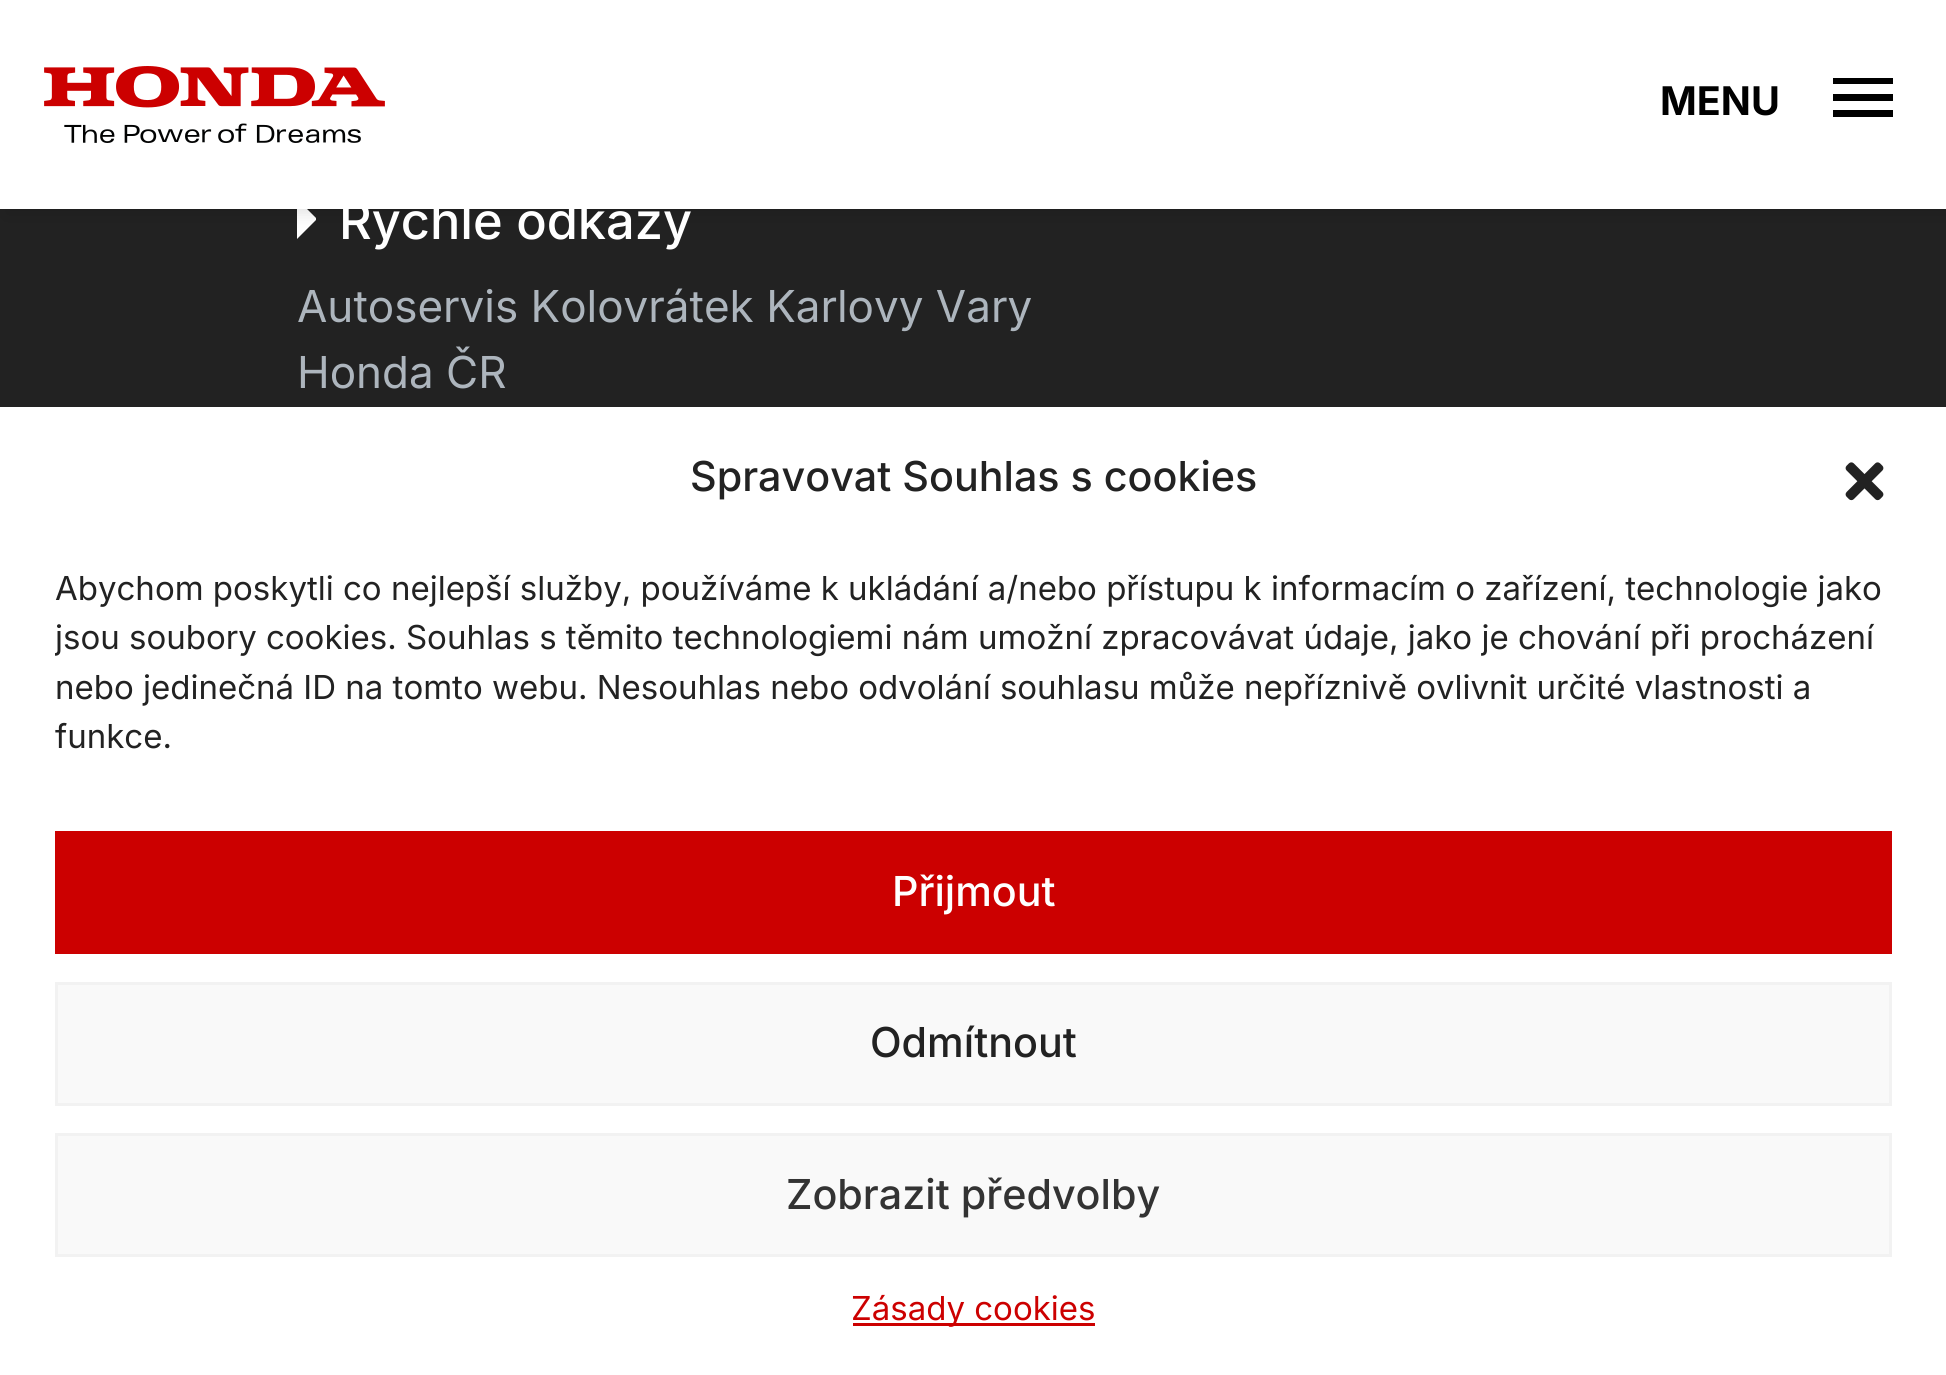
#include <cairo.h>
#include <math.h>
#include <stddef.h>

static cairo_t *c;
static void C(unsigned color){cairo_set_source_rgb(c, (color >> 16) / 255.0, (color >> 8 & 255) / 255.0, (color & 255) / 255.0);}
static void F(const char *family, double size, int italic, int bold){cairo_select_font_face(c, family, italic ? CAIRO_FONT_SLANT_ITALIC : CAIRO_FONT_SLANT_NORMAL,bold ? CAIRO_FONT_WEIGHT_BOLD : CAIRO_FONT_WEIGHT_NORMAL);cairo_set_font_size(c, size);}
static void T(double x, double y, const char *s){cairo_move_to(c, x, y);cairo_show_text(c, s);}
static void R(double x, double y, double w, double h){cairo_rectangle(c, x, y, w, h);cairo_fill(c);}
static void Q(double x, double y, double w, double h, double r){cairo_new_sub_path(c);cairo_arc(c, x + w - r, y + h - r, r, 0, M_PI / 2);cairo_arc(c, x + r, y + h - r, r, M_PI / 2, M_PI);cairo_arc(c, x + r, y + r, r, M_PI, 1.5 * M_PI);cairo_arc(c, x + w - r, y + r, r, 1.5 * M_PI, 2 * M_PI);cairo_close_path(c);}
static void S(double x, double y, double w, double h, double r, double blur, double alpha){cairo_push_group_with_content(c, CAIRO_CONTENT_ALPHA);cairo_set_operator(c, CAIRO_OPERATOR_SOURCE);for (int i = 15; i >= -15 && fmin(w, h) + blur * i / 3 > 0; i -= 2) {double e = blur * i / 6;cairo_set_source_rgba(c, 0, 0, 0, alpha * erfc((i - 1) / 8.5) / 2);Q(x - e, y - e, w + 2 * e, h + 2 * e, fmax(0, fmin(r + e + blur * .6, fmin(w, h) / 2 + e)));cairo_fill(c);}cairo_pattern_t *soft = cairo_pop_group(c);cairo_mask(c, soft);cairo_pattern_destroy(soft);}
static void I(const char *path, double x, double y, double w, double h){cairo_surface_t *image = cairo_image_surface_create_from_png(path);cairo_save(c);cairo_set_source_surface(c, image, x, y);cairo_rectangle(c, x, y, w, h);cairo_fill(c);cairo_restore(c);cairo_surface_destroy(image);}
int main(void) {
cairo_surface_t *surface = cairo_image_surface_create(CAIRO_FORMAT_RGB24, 1946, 1375);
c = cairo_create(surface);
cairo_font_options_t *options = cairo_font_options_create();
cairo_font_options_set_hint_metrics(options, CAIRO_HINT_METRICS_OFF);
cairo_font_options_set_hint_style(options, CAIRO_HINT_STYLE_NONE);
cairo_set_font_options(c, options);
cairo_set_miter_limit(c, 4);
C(0x222222);
cairo_paint(c);
C(0xffffff);
cairo_new_path(c);
cairo_move_to(c,297,199);
cairo_line_to(c,297,239);
cairo_line_to(c,316,220);
cairo_line_to(c,316,218);
cairo_close_path(c);
cairo_fill(c);
C(0x000000);
S(6,6,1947,209,0,7,.1);
C(0xffffff);
R(0,0,1946,209);
I("1.png",44,66,341,77);
F("Inter",39.5,0,1);
C(0x000000);
T(1660,115,"MENU");
cairo_new_path(c);
cairo_move_to(c,1833,78);
cairo_line_to(c,1893,78);
cairo_line_to(c,1893,84);
cairo_line_to(c,1833,84);
cairo_close_path(c);
cairo_move_to(c,1833,101);
cairo_line_to(c,1833,94);
cairo_line_to(c,1893,94);
cairo_line_to(c,1893,101);
cairo_close_path(c);
cairo_move_to(c,1833,117);
cairo_line_to(c,1833,110);
cairo_line_to(c,1893,110);
cairo_line_to(c,1893,117);
cairo_close_path(c);
cairo_fill(c);
F("Inter Medium",50.5,0,0);
C(0xffffff);
T(339,239,"Rychlé odkazy");
F("Inter",44,0,0);
C(0xadb5bd);
T(297,322,"Autoservis Kolovrátek Karlovy Vary");
T(297,388,"Honda ČR");
C(0xffffff);
R(0,407,1946,968);
F("Inter Medium",41.25,0,0);
C(0x222222);
T(690,491,"Spravovat Souhlas s cookies");
I("2.png",1845,462,39,39);
F("Inter",33,0,0);
T(55,600,"Abychom poskytli co nejlepší služby, používáme k ukládání a/nebo přístupu k informacím o zařízení, technologie jako");
cairo_save(c);
cairo_rectangle(c,55,564,1837,212);
cairo_clip(c);
T(55,649,"jsou soubory cookies. Souhlas s těmito technologiemi nám umožní zpracovávat údaje, jako je chování při procházení");
cairo_restore(c);
T(55,699,"nebo jedinečná ID na tomto webu. Nesouhlas nebo odvolání souhlasu může nepříznivě ovlivnit určité vlastnosti a");
T(55,748,"funkce.");
C(0xcc0000);
R(55,831,1837,123);
F("Inter Medium",41.25,0,0);
C(0xffffff);
T(892,906,"Přijmout");
C(0xf9f9f9);
cairo_rectangle(c,56.5,983.5,1834,121);
cairo_fill_preserve(c);
C(0xf2f2f2);
cairo_set_line_width(c,3);
cairo_stroke(c);
C(0x222222);
T(870,1057,"Odmítnout");
C(0xf9f9f9);
cairo_rectangle(c,56.5,1134.5,1834,121);
cairo_fill_preserve(c);
C(0xf2f2f2);
cairo_stroke(c);
C(0x333333);
T(786,1209,"Zobrazit předvolby");
C(0xcc0000);
R(853,1323,242,3);
F("Inter",33,0,0);
T(851,1320,"Zásady cookies");
cairo_surface_write_to_png(surface, "o.png");
cairo_font_options_destroy(options);
cairo_destroy(c);
cairo_surface_destroy(surface);
return 0;
}
